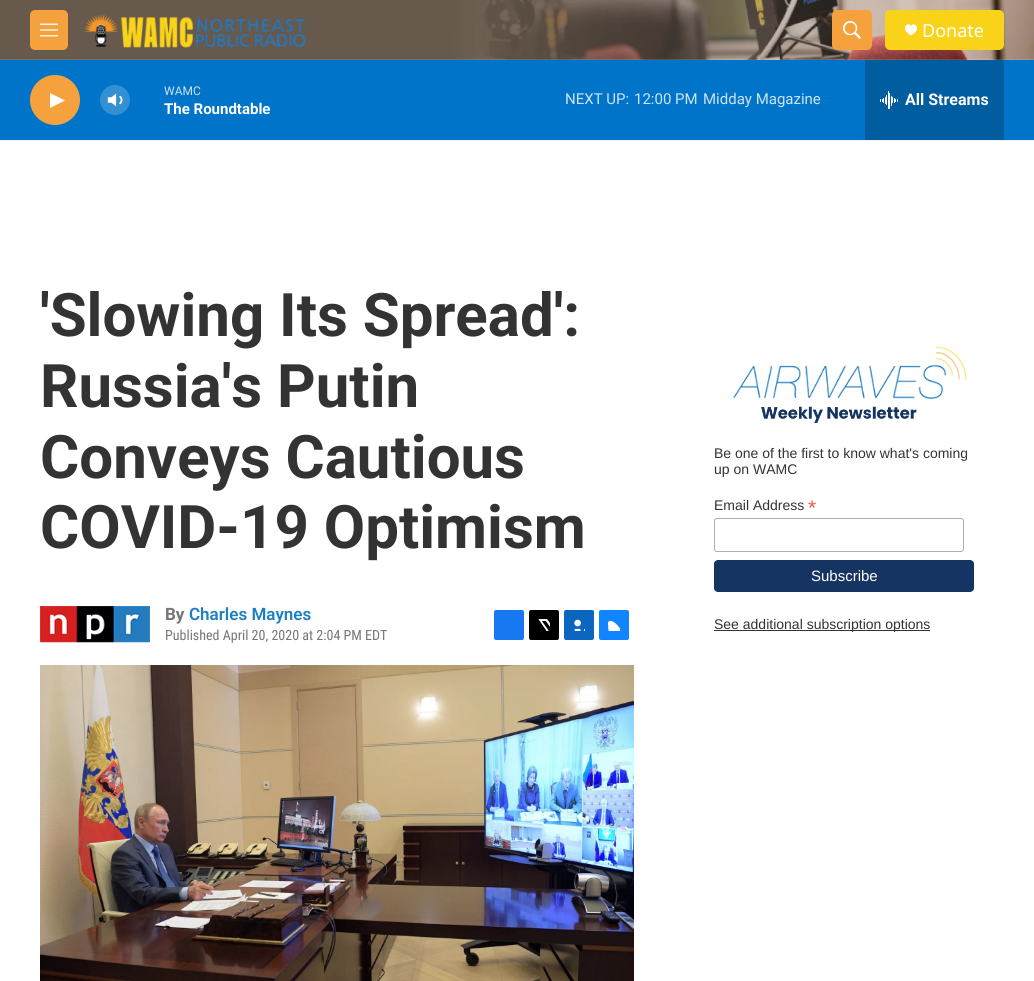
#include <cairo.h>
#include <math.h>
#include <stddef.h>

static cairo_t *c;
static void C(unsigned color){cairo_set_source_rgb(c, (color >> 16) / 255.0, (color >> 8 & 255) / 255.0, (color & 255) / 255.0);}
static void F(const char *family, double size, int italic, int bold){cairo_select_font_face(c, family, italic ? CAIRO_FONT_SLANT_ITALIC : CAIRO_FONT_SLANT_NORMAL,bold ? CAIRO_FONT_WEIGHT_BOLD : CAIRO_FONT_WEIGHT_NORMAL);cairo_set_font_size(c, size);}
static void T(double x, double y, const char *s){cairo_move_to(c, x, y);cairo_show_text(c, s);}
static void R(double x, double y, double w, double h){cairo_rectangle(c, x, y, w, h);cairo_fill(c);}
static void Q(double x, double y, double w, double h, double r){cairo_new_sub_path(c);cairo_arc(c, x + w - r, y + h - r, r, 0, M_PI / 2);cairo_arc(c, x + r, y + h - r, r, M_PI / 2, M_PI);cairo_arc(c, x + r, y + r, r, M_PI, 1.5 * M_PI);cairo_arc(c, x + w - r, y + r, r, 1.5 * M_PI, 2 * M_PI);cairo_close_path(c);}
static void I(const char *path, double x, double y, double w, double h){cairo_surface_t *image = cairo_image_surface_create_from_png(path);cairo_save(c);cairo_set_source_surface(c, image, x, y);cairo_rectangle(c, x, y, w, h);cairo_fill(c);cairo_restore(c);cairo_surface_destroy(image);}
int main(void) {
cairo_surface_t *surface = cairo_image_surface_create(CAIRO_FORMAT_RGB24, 1034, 981);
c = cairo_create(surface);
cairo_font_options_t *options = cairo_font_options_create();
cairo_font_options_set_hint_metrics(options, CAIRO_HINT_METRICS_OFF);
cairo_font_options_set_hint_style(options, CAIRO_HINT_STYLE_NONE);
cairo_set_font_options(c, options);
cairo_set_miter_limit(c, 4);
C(0xffffff);
cairo_paint(c);
C(0xf5f5f5);
R(0,140,1034,1);
I("1.png",0,0,1034,60);
C(0xf5a13d);
Q(30,10,38,40,5);
cairo_fill(c);
I("2.png",40,23,18,14);
I("3.png",84,14,222,34);
Q(832,10,40,40,5);
cairo_fill(c);
I("4.png",843,21,18,18);
C(0xf9d319);
Q(885,10,119,40,5);
cairo_fill(c);
C(0xffffff);
cairo_new_path(c);
cairo_move_to(c,911,26);
cairo_curve_to(c,909,21,898.5,28,911,35.5);
cairo_curve_to(c,923.5,28,913,21,911,26);
cairo_close_path(c);
cairo_fill(c);
F("Noto Sans",18,0,0);
T(922,37,"Donate");
C(0x0074c8);
R(0,60,1034,80);
C(0xf5a13d);
cairo_new_path(c);
cairo_arc(c,55,100,25,0,2 * M_PI);
cairo_fill(c);
C(0xffffff);
cairo_new_path(c);
cairo_move_to(c,50,93);
cairo_line_to(c,65,100.5);
cairo_line_to(c,50,108);
cairo_close_path(c);
cairo_fill(c);
I("5.png",107,93,16,14);
cairo_set_source_rgba(c,1,1,1,0.2);
cairo_arc(c,115,100,15,0,2 * M_PI);
cairo_fill(c);
F("Roboto",12,0,0);
C(0xcce3f4);
T(164,95,"WAMC");
F("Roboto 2",15,0,1);
C(0xffffff);
T(164,114,"The Roundtable");
F("Roboto",15,0,0);
C(0xcce3f4);
T(565,104,"NEXT UP:");
T(634,104,"12:00 PM");
T(703,104,"Midday Magazine");
C(0x005da0);
R(865,60,139,80);
I("6.png",880,91,18,18);
F("Roboto 2",16,0,1);
C(0xffffff);
T(905,105,"All Streams");
F("Roboto",60,0,1);
C(0x333333);
T(40,336,"'Slowing Its Spread':");
T(40,407,"Russia's Putin");
T(40,478,"Conveys Cautious");
T(40,548,"COVID-19 Optimism");
I("7.png",40,606,110,37);
F("Roboto",17,0,1);
C(0x767676);
T(165,620,"By");
F("Roboto SemiBold",17,0,0);
C(0x1a7fc3);
T(189,620,"Charles Maynes");
F("Roboto Condensed",14,0,0);
C(0x767676);
T(165,640,"Published April 20, 2020 at 2:04 PM EDT");
C(0x1778f2);
Q(494,610,30,30,2);
cairo_fill(c);
C(0x000000);
Q(529,610,30,30,2);
cairo_fill(c);
I("8.png",538,619,12,12);
C(0x0a66c1);
Q(564,610,30,30,2);
cairo_fill(c);
I("9.png",574,619,11,12);
C(0x1185fe);
Q(599,610,30,30,2);
cairo_fill(c);
I("10.png",608,620,12,11);
I("11.png",40,665,594,316);
I("12.png",733,346,234,77);
F("Liberation Sans",14,0,0);
C(0x333333);
T(714,458,"Be one of the first to know what's coming");
T(714,474,"up on WAMC");
T(714,510,"Email Address");
F("Liberation Sans",21,0,0);
C(0xe85c41);
T(808,515,"*");
Q(714.5,518.5,249,33,2.5);
C(0xabb0b2);
cairo_set_line_width(c,1);
cairo_stroke(c);
C(0x153462);
Q(714,560,260,32,4);
cairo_fill(c);
F("Liberation Sans",15,0,0);
C(0xffffff);
T(811,581,"Subscribe");
C(0x333333);
R(714,630,216,1);
F("Liberation Sans",14,0,0);
T(714,629,"See additional subscription options");
cairo_surface_write_to_png(surface, "o.png");
cairo_font_options_destroy(options);
cairo_destroy(c);
cairo_surface_destroy(surface);
return 0;
}
